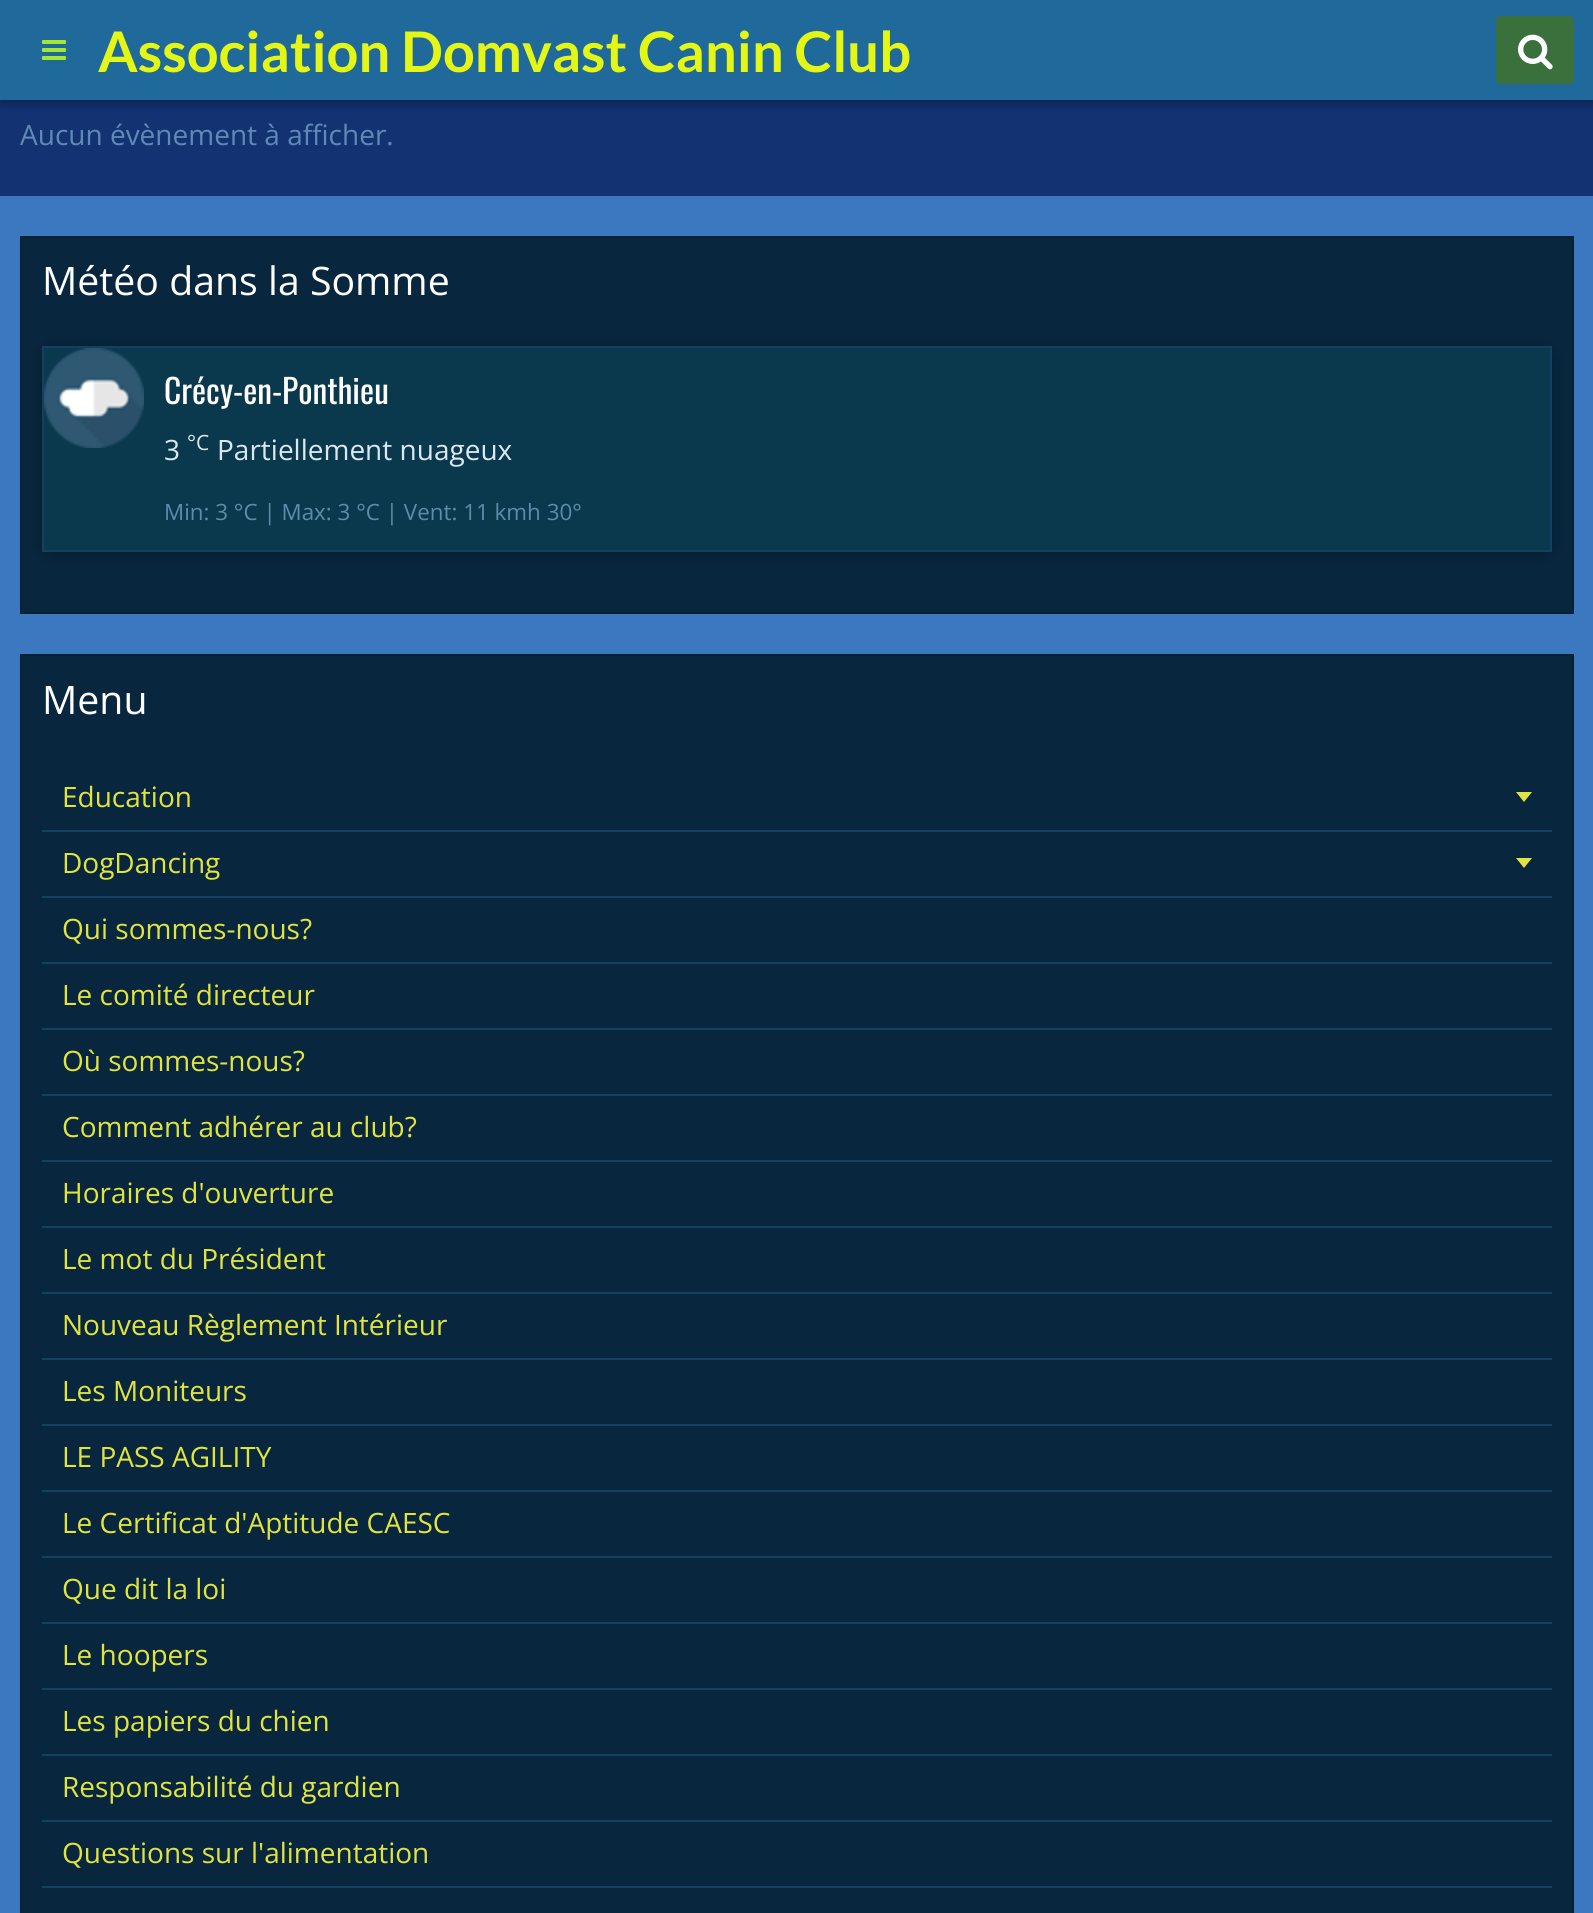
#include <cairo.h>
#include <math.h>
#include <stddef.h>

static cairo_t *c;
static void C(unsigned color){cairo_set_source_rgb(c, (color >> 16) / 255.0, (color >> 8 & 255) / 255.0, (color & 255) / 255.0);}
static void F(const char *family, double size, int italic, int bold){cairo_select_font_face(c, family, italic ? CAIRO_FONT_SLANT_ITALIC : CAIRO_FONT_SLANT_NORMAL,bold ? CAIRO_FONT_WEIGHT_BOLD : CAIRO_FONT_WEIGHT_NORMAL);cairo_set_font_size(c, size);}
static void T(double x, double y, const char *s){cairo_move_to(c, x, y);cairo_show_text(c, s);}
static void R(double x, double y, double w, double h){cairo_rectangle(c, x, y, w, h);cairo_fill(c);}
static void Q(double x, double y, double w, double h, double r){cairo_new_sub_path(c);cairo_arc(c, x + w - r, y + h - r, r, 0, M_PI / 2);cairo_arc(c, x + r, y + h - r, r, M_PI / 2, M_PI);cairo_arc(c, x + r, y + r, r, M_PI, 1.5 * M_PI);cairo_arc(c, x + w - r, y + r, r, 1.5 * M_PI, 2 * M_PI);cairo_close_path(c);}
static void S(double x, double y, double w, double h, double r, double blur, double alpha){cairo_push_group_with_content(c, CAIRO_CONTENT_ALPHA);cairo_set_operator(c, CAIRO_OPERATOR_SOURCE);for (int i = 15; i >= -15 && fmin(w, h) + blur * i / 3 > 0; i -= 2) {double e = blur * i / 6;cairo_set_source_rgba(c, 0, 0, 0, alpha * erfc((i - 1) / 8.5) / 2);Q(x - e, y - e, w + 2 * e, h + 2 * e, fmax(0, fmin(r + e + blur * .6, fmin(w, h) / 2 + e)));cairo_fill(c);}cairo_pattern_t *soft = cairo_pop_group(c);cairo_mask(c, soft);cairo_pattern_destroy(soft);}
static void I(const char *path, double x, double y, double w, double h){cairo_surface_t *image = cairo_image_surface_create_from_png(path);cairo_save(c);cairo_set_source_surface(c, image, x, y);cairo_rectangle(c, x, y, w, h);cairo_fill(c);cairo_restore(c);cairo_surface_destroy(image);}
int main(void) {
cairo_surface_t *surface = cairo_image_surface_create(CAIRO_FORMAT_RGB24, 1593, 1913);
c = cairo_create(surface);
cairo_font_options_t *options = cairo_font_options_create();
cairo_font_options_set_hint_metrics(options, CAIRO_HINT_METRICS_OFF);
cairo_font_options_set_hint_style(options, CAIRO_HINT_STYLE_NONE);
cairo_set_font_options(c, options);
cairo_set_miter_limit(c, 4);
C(0x123272);
cairo_paint(c);
C(0x000000);
S(0,4,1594,100,0,5,.3);
C(0x1f699b);
R(0,0,1593,100);
I("1.png",42,40,24,20);
F("Lato",56,0,1);
C(0xe4f616);
T(98,72,"Association Domvast Canin Club");
C(0x3a703c);
Q(1496,16,78,68,5);
cairo_fill(c);
I("2.png",1518,34,35,36);
F("Open Sans",28,0,0);
C(0x5e8ab5);
T(20,145,"Aucun évènement à afficher.");
C(0x3b78bf);
R(0,196,1593,1717);
C(0x08263e);
cairo_rectangle(c,21,237,1552,376);
cairo_fill_preserve(c);
C(0x022231);
cairo_stroke(c);
F("Open Sans",39.25,0,0);
C(0xffffff);
T(42,295,"Météo dans la Somme");
C(0x000000);
S(52,358,1490,186,0,10,1);
C(0x0a394d);
cairo_rectangle(c,43,347,1508,204);
cairo_fill_preserve(c);
C(0x14415e);
cairo_stroke(c);
I("3.png",44,348,100,100);
F("Oswald",33.5,0,0);
C(0xffffff);
T(164,404,"Crécy-en-Ponthieu");
F("Open Sans",28,0,0);
C(0xdbe8f0);
T(164,460,"3");
F("Open Sans",21,0,0);
T(187,450,"°C");
F("Open Sans",28,0,0);
T(217,460,"Partiellement nuageux");
F("Open Sans",22.4,0,0);
C(0x5b8ca9);
T(164,520,"Min: 3 °C | Max: 3 °C | Vent: 11 kmh 30°");
C(0x08263e);
cairo_rectangle(c,21,655,1552,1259);
cairo_fill_preserve(c);
C(0x022231);
cairo_stroke(c);
F("Open Sans",39.25,0,0);
C(0xffffff);
T(42,714,"Menu");
C(0x14415e);
R(42,830,1510,2);
F("Open Sans",28,0,0);
C(0xe1e43e);
T(62,807,"Education");
cairo_new_path(c);
cairo_move_to(c,1516,792);
cairo_line_to(c,1532,792);
cairo_line_to(c,1524,802);
cairo_close_path(c);
cairo_fill(c);
C(0x14415e);
R(42,896,1510,2);
C(0xe1e43e);
T(62,873,"DogDancing");
cairo_new_path(c);
cairo_move_to(c,1516,858);
cairo_line_to(c,1532,858);
cairo_line_to(c,1524,868);
cairo_close_path(c);
cairo_fill(c);
C(0x14415e);
R(42,962,1510,2);
C(0xe1e43e);
T(62,939,"Qui sommes-nous?");
C(0x14415e);
R(42,1028,1510,2);
C(0xe1e43e);
T(62,1005,"Le comité directeur");
C(0x14415e);
R(42,1094,1510,2);
C(0xe1e43e);
T(62,1071,"Où sommes-nous?");
C(0x14415e);
R(42,1160,1510,2);
C(0xe1e43e);
T(62,1137,"Comment adhérer au club?");
C(0x14415e);
R(42,1226,1510,2);
C(0xe1e43e);
T(62,1203,"Horaires d'ouverture");
C(0x14415e);
R(42,1292,1510,2);
C(0xe1e43e);
T(62,1269,"Le mot du Président");
C(0x14415e);
R(42,1358,1510,2);
C(0xe1e43e);
T(62,1335,"Nouveau Règlement Intérieur");
C(0x14415e);
R(42,1424,1510,2);
C(0xe1e43e);
T(62,1401,"Les Moniteurs");
C(0x14415e);
R(42,1490,1510,2);
C(0xe1e43e);
T(62,1467,"LE PASS AGILITY");
C(0x14415e);
R(42,1556,1510,2);
C(0xe1e43e);
T(62,1533,"Le Certificat d'Aptitude CAESC");
C(0x14415e);
R(42,1622,1510,2);
C(0xe1e43e);
T(62,1599,"Que dit la loi");
C(0x14415e);
R(42,1688,1510,2);
C(0xe1e43e);
T(62,1665,"Le hoopers");
C(0x14415e);
R(42,1754,1510,2);
C(0xe1e43e);
T(62,1731,"Les papiers du chien");
C(0x14415e);
R(42,1820,1510,2);
C(0xe1e43e);
T(62,1797,"Responsabilité du gardien");
C(0x14415e);
R(42,1886,1510,2);
C(0xe1e43e);
T(62,1863,"Questions sur l'alimentation");
cairo_surface_write_to_png(surface, "o.png");
cairo_font_options_destroy(options);
cairo_destroy(c);
cairo_surface_destroy(surface);
return 0;
}
